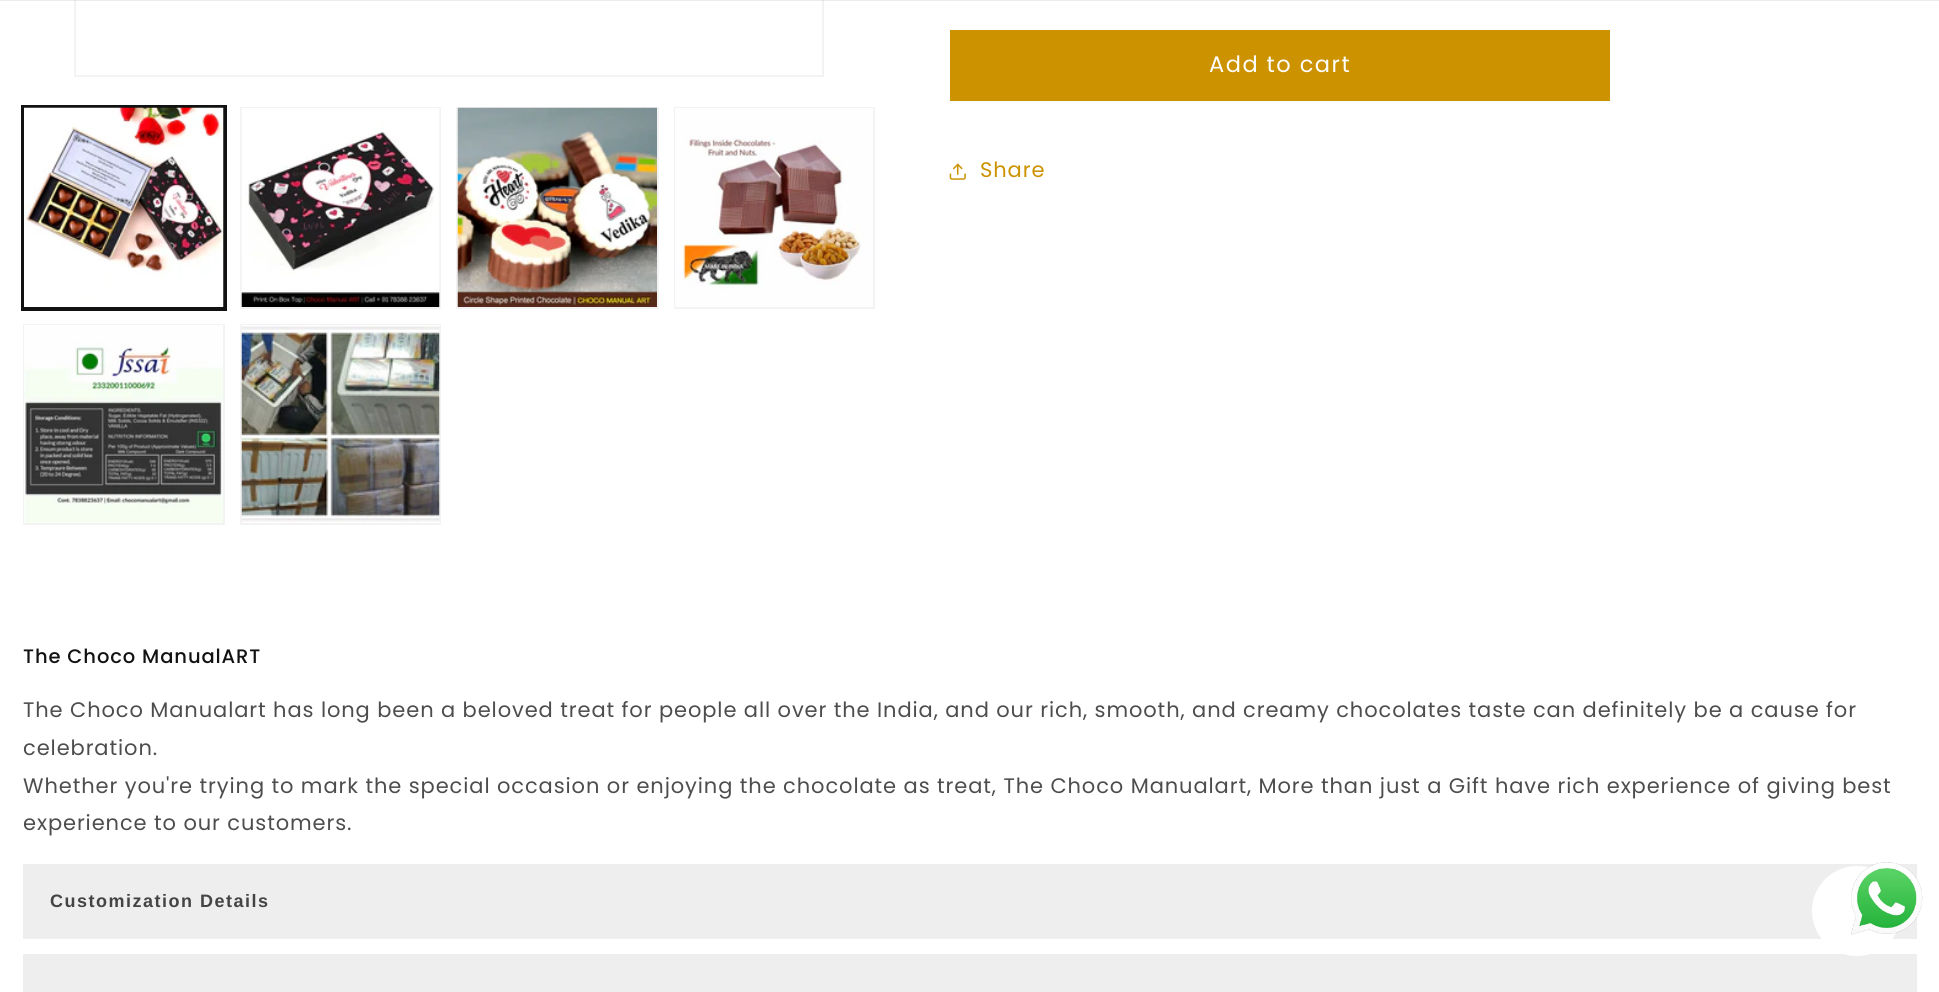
#include <cairo.h>
#include <math.h>
#include <stddef.h>

static cairo_t *c;
static void C(unsigned color){cairo_set_source_rgb(c, (color >> 16) / 255.0, (color >> 8 & 255) / 255.0, (color & 255) / 255.0);}
static void F(const char *family, double size, int italic, int bold){cairo_select_font_face(c, family, italic ? CAIRO_FONT_SLANT_ITALIC : CAIRO_FONT_SLANT_NORMAL,bold ? CAIRO_FONT_WEIGHT_BOLD : CAIRO_FONT_WEIGHT_NORMAL);cairo_set_font_size(c, size);}
static void L(double x, double y, const char *s, double letter, double word){cairo_move_to(c, x, y);while (*s) {char ch[5] = {0};int n = 0;do ch[n++] = *s++; while ((*s & 0xC0) == 0x80);cairo_show_text(c, ch);cairo_rel_move_to(c, letter + word * (*ch == ' '), 0);}}
static void R(double x, double y, double w, double h){cairo_rectangle(c, x, y, w, h);cairo_fill(c);}
static void I(const char *path, double x, double y, double w, double h){cairo_surface_t *image = cairo_image_surface_create_from_png(path);cairo_save(c);cairo_set_source_surface(c, image, x, y);cairo_rectangle(c, x, y, w, h);cairo_fill(c);cairo_restore(c);cairo_surface_destroy(image);}
int main(void) {
cairo_surface_t *surface = cairo_image_surface_create(CAIRO_FORMAT_RGB24, 1939, 992);
c = cairo_create(surface);
cairo_font_options_t *options = cairo_font_options_create();
cairo_font_options_set_hint_metrics(options, CAIRO_HINT_METRICS_OFF);
cairo_font_options_set_hint_style(options, CAIRO_HINT_STYLE_NONE);
cairo_set_font_options(c, options);
cairo_set_miter_limit(c, 4);
C(0xffffff);
cairo_paint(c);
cairo_rectangle(c,75,-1,748,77);
C(0xf3f3f3);
cairo_stroke(c);
cairo_set_source_rgba(c,0.071,0.071,0.071,0.08);
R(0,0,1939,1);
cairo_rectangle(c,22,106,204,204);
C(0x121212);
cairo_stroke(c);
cairo_rectangle(c,24,108,200,200);
cairo_stroke(c);
I("1.png",24,107,200,200);
cairo_rectangle(c,241,108,199,200);
C(0xf3f3f3);
cairo_stroke(c);
I("2.png",241,108,199,199);
cairo_rectangle(c,457,108,201,200);
cairo_stroke(c);
I("3.png",457,107,200,200);
cairo_rectangle(c,675,108,199,200);
cairo_stroke(c);
I("4.png",675,108,198,199);
cairo_rectangle(c,24,325,200,199);
cairo_stroke(c);
I("5.png",24,325,199,198);
cairo_rectangle(c,241,325,199,199);
cairo_stroke(c);
I("6.png",241,325,199,198);
C(0xcc9200);
R(950,30,660,71);
F("Poppins",22.5,0,0);
C(0xffffff);
L(1209,72,"Add to cart",1.5,0);
I("7.png",949,163,17,17);
F("Poppins",21,0,0);
C(0xcc9200);
L(980,177,"Share",.9,0);
F("Poppins Medium",19.5,0,0);
C(0x121212);
L(23,663,"The Choco ManualART",.9,0);
F("Poppins",21,0,0);
C(0x4d4d4d);
L(23,717,"The Choco Manualart has long been a beloved treat for people all over the India, and our rich, smooth, and creamy chocolates taste can definitely be a cause for",.9,0);
L(23,755,"celebration.",.9,0);
L(23,793,"Whether you're trying to mark the special occasion or enjoying the chocolate as treat, The Choco Manualart, More than just a Gift have rich experience of giving best",.9,0);
L(23,830,"experience to our customers.",.9,0);
C(0xeeeeee);
R(23,864,1894,75);
F("Liberation Sans",18,0,1);
C(0x444444);
L(50,907,"Customization Details",1.5,0);
C(0xeeeeee);
R(23,954,1894,38);
C(0xffffff);
cairo_new_path(c);
cairo_arc(c,1857,911,45,0,2 * M_PI);
cairo_fill(c);
I("8.png",1851,862,72,73);
cairo_surface_write_to_png(surface, "o.png");
cairo_font_options_destroy(options);
cairo_destroy(c);
cairo_surface_destroy(surface);
return 0;
}
